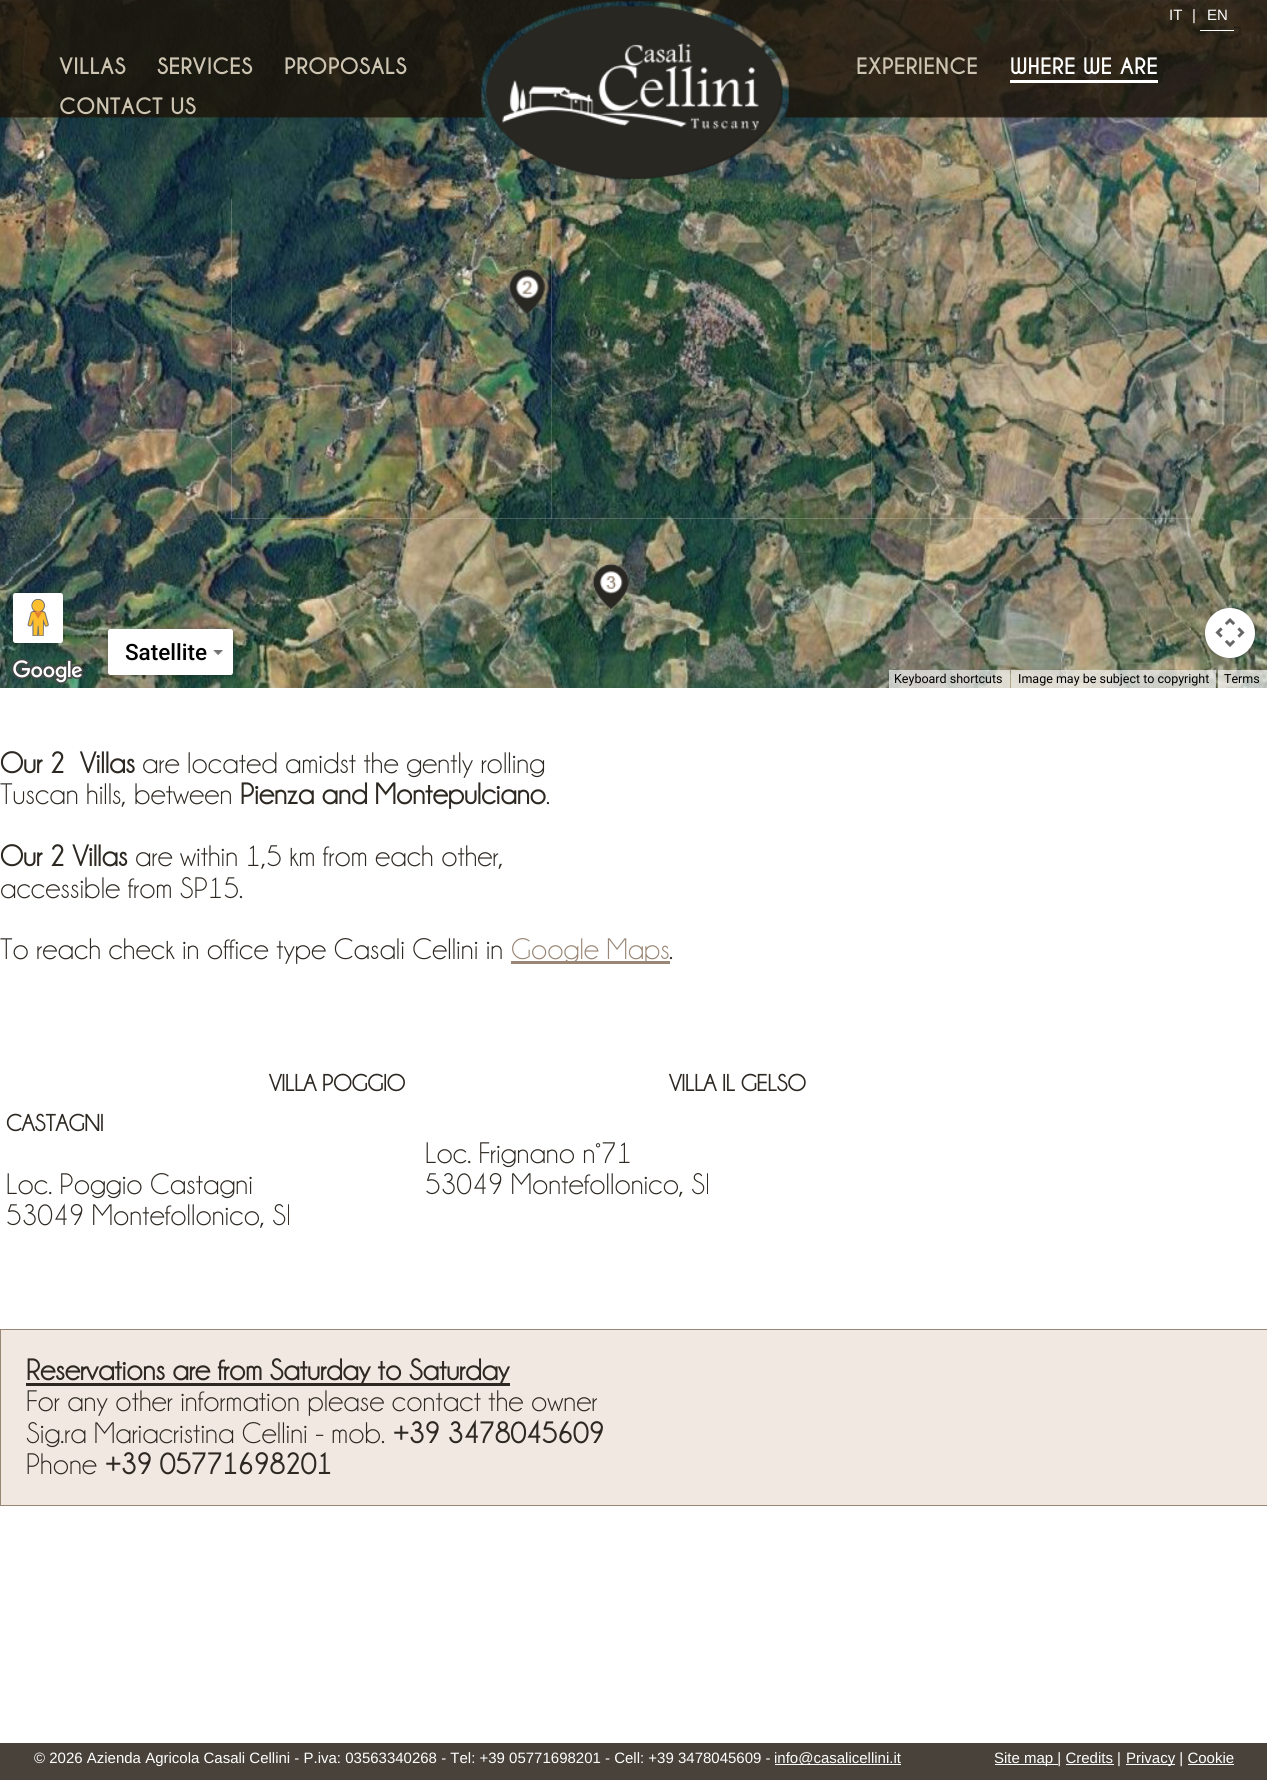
#include <cairo.h>
#include <math.h>
#include <stddef.h>

static cairo_t *c;
static void C(unsigned color){cairo_set_source_rgb(c, (color >> 16) / 255.0, (color >> 8 & 255) / 255.0, (color & 255) / 255.0);}
static void F(const char *family, double size, int italic, int bold){cairo_select_font_face(c, family, italic ? CAIRO_FONT_SLANT_ITALIC : CAIRO_FONT_SLANT_NORMAL,bold ? CAIRO_FONT_WEIGHT_BOLD : CAIRO_FONT_WEIGHT_NORMAL);cairo_set_font_size(c, size);}
static void T(double x, double y, const char *s){cairo_move_to(c, x, y);cairo_show_text(c, s);}
static void R(double x, double y, double w, double h){cairo_rectangle(c, x, y, w, h);cairo_fill(c);}
static void Q(double x, double y, double w, double h, double r){cairo_new_sub_path(c);cairo_arc(c, x + w - r, y + h - r, r, 0, M_PI / 2);cairo_arc(c, x + r, y + h - r, r, M_PI / 2, M_PI);cairo_arc(c, x + r, y + r, r, M_PI, 1.5 * M_PI);cairo_arc(c, x + w - r, y + r, r, 1.5 * M_PI, 2 * M_PI);cairo_close_path(c);}
static void S(double x, double y, double w, double h, double r, double blur, double alpha){cairo_push_group_with_content(c, CAIRO_CONTENT_ALPHA);cairo_set_operator(c, CAIRO_OPERATOR_SOURCE);for (int i = 15; i >= -15 && fmin(w, h) + blur * i / 3 > 0; i -= 2) {double e = blur * i / 6;cairo_set_source_rgba(c, 0, 0, 0, alpha * erfc((i - 1) / 8.5) / 2);Q(x - e, y - e, w + 2 * e, h + 2 * e, fmax(0, fmin(r + e + blur * .6, fmin(w, h) / 2 + e)));cairo_fill(c);}cairo_pattern_t *soft = cairo_pop_group(c);cairo_mask(c, soft);cairo_pattern_destroy(soft);}
static void I(const char *path, double x, double y, double w, double h){cairo_surface_t *image = cairo_image_surface_create_from_png(path);cairo_save(c);cairo_set_source_surface(c, image, x, y);cairo_rectangle(c, x, y, w, h);cairo_fill(c);cairo_restore(c);cairo_surface_destroy(image);}
int main(void) {
cairo_surface_t *surface = cairo_image_surface_create(CAIRO_FORMAT_RGB24, 1267, 1780);
c = cairo_create(surface);
cairo_font_options_t *options = cairo_font_options_create();
cairo_font_options_set_hint_metrics(options, CAIRO_HINT_METRICS_OFF);
cairo_font_options_set_hint_style(options, CAIRO_HINT_STYLE_NONE);
cairo_set_font_options(c, options);
cairo_set_miter_limit(c, 4);
C(0xffffff);
cairo_paint(c);
I("3.png",0,0,231,199);
I("4.png",231,0,320,199);
I("5.png",551,0,320,199);
I("6.png",871,0,320,199);
I("7.png",1191,0,76,199);
cairo_save(c);
cairo_set_fill_rule(c,CAIRO_FILL_RULE_EVEN_ODD);
cairo_new_path(c);
cairo_move_to(c,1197,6);
cairo_line_to(c,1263,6);
cairo_line_to(c,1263,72);
cairo_line_to(c,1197,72);
cairo_close_path(c);
cairo_move_to(c,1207.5,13);
cairo_line_to(c,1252.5,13);
cairo_curve_to(c,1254,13,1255,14,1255,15.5);
cairo_line_to(c,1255,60.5);
cairo_curve_to(c,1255,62,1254,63,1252.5,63);
cairo_line_to(c,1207.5,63);
cairo_curve_to(c,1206,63,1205,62,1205,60.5);
cairo_line_to(c,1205,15.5);
cairo_curve_to(c,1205,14,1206,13,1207.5,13);
cairo_close_path(c);
cairo_clip(c);
C(0x000000);
S(1206,15,48,48,1,2.5,.3);
cairo_restore(c);
I("20.png",1219,26,22,23);
I("1.png",0,0,1267,179);
I("2.png",486,6,296,172);
F("Liberation Sans",15,0,0);
C(0xffffff);
T(1169,20,"IT");
T(1192,20,"|");
T(1207,20,"EN");
R(1200,30,34,1);
F("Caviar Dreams",21.25,0,1);
C(0xcdc4b2);
T(59,74,"VILLAS");
T(157,74,"SERVICES");
T(284,74,"PROPOSALS");
T(856,74,"EXPERIENCE");
C(0xffffff);
T(1010,74,"WHERE WE ARE");
R(1010,80,148,3);
C(0xcdc4b2);
T(59,114,"CONTACT US");
C(0xe5e3df);
R(231,199,960,320);
I("8.png",0,199,231,320);
I("10.png",551,199,321,320);
I("9.png",231,199,321,320);
I("11.png",871,198,320,321);
I("12.png",1191,199,76,320);
I("13.png",0,519,231,169);
I("14.png",231,519,320,169);
I("15.png",551,519,320,169);
I("16.png",871,519,320,169);
I("17.png",1191,519,76,169);
I("18.png",508,268,38,48);
I("19.png",592,563,37,47);
C(0x000000);
S(14,595,47,48,1,2.5,.3);
C(0xffffff);
Q(13,593,50,50,2.5);
cairo_fill(c);
I("21.png",27,599,22,37);
C(0x000000);
S(109,631,122,44,1,2.5,.3);
C(0xffffff);
Q(108,629,125,46,2.5);
cairo_fill(c);
F("Roboto Medium",22.5,0,0);
C(0x000000);
T(125,660,"Satellite");
I("22.png",213,650,10,5);
I("23.png",11,658,73,26);
C(0x000000);
S(1206,610,48,48,24,2.5,.3);
C(0xffffff);
cairo_arc(c,1230,633,25,0,2 * M_PI);
cairo_fill(c);
I("24.png",1215,618,30,29);
cairo_set_source_rgba(c,0.961,0.961,0.961,0.7);
R(889,670,121,18);
F("Roboto",12.5,0,0);
C(0x000000);
T(894,683,"Keyboard shortcuts");
cairo_set_source_rgba(c,0.961,0.961,0.961,0.7);
R(1011,670,205,18);
C(0x000000);
T(1018,683,"Image may be subject to copyright");
cairo_set_source_rgba(c,0.961,0.961,0.961,0.7);
R(1218,670,49,18);
C(0x000000);
T(1224,683,"Terms");
F("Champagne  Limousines",30,0,1);
C(0x2d2822);
T(0,773,"Our 2");
T(80,773,"Villas");
F("Champagne  Limousines",30,0,0);
T(142,773,"are located amidst the gently rolling");
T(0,804,"Tuscan hills, between");
F("Champagne  Limousines",30,0,1);
T(240,804,"Pienza and Montepulciano");
F("Champagne  Limousines",30,0,0);
T(546,804,".");
F("Champagne  Limousines",30,0,1);
T(0,866,"Our 2 Villas");
F("Champagne  Limousines",30,0,0);
T(135,866,"are within 1,5 km from each other,");
T(0,898,"accessible from SP15.");
T(0,959,"To reach check in office type Casali Cellini in");
C(0x998675);
R(511,961,159,3);
T(511,959,"Google Maps");
C(0x2d2822);
T(669,959,".");
F("Champagne  Limousines",23.75,0,1);
T(269,1091,"VILLA POGGIO");
T(6,1131,"CASTAGNI");
F("Champagne  Limousines",30,0,0);
T(6,1194,"Loc. Poggio Castagni");
T(6,1225,"53049 Montefollonico, SI");
F("Champagne  Limousines",23.75,0,1);
T(669,1091,"VILLA IL GELSO");
F("Champagne  Limousines",30,0,0);
T(425,1163,"Loc. Frignano n°71");
T(425,1194,"53049 Montefollonico, SI");
C(0xf1e9e1);
cairo_rectangle(c,.5,1329.5,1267,176);
cairo_fill_preserve(c);
C(0x998675);
cairo_set_line_width(c,1);
cairo_stroke(c);
C(0x2d2822);
R(26,1383,484,3);
F("Champagne  Limousines",30,0,1);
T(26,1380,"Reservations are from Saturday to Saturday");
F("Champagne  Limousines",30,0,0);
T(26,1411,"For any other information please contact the owner");
T(26,1443,"Sig.ra Mariacristina Cellini - mob.");
F("Champagne  Limousines",30,0,1);
T(393,1443,"+39 3478045609");
F("Champagne  Limousines",30,0,0);
T(26,1474,"Phone");
F("Champagne  Limousines",30,0,1);
T(105,1474,"+39 05771698201");
C(0x49423a);
R(0,1743,1267,37);
F("Liberation Sans",15,0,0);
C(0xffffff);
T(34,1763,"© 2026 Azienda Agricola Casali Cellini - P.iva: 03563340268 - Tel: +39 05771698201 - Cell: +39 3478045609 -");
R(775,1764,126,1);
T(774,1763,"info@casalicellini.it");
R(995,1764,63,1);
T(994,1763,"Site map | Credits |");
R(1126,1764,49,1);
T(1126,1763,"Privacy | Cookie");
R(1066,1764,48,1);
R(1188,1764,46,1);
cairo_surface_write_to_png(surface, "o.png");
cairo_font_options_destroy(options);
cairo_destroy(c);
cairo_surface_destroy(surface);
return 0;
}
